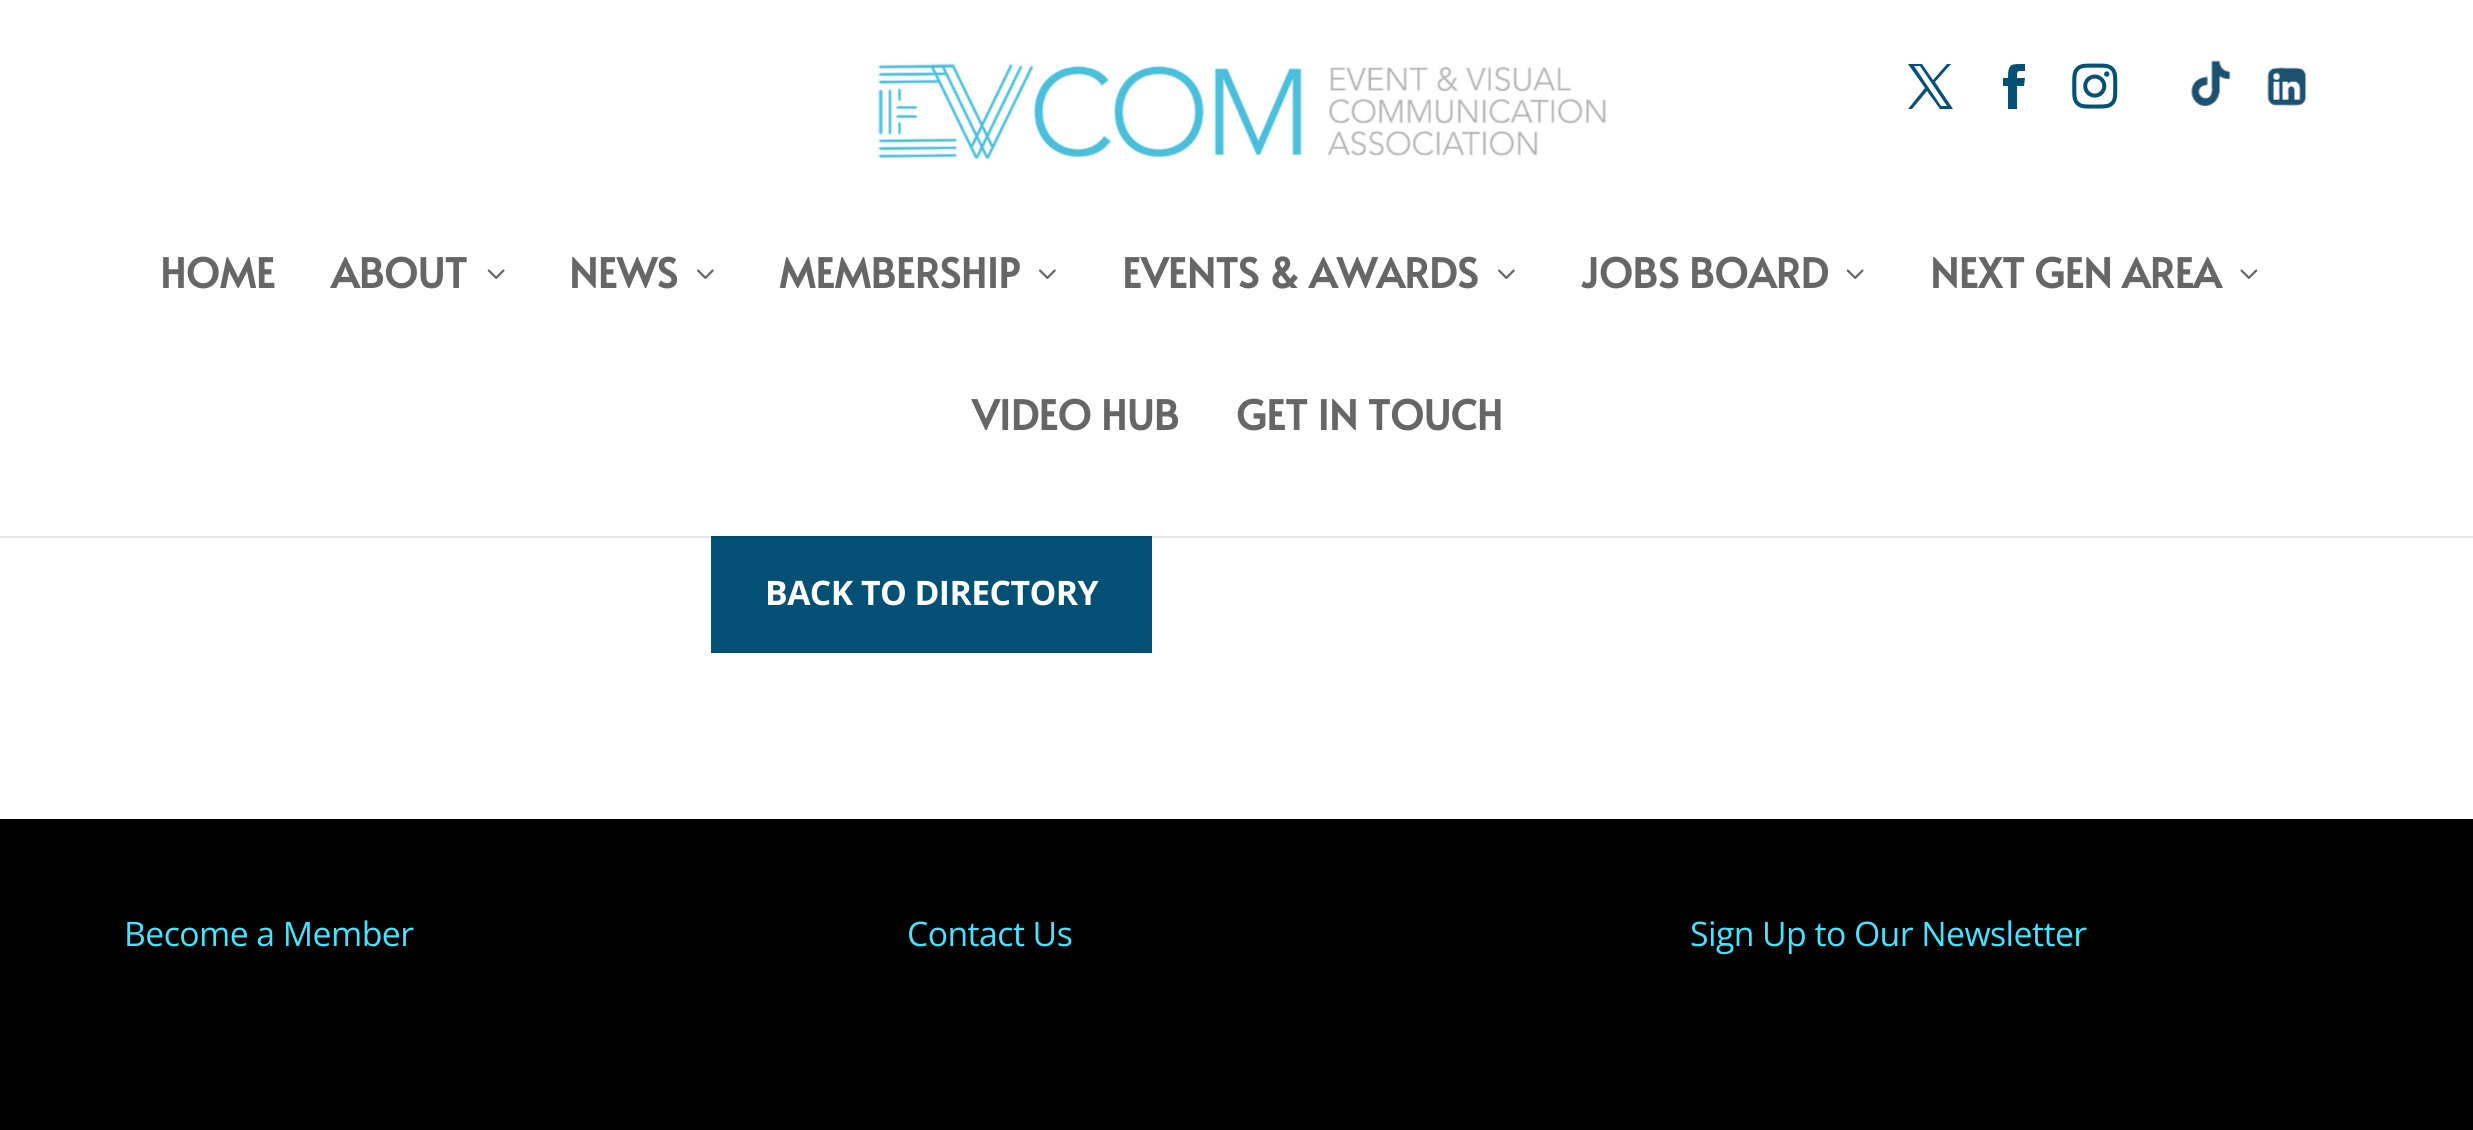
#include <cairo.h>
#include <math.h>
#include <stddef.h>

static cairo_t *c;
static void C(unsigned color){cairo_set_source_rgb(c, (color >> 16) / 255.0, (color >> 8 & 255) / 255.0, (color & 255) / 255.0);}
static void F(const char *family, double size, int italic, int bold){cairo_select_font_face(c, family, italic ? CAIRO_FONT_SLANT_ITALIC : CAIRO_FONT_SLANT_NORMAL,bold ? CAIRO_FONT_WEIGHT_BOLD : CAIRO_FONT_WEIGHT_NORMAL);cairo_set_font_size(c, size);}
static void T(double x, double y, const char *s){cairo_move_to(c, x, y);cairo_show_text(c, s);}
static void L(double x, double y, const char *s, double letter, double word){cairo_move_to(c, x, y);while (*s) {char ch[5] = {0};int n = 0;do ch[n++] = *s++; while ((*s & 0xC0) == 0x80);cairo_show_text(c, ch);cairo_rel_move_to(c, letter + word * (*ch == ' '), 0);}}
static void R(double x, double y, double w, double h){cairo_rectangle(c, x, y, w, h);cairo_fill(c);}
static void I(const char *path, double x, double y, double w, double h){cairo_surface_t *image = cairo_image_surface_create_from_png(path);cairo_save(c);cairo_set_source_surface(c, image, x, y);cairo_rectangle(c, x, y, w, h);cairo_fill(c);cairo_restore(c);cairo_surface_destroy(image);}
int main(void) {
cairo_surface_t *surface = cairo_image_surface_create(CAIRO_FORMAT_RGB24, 2473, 1130);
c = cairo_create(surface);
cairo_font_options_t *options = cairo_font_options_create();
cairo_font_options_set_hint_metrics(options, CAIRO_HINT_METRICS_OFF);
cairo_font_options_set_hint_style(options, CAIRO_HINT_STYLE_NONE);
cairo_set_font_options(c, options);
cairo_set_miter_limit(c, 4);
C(0xffffff);
cairo_paint(c);
C(0x025074);
cairo_new_path(c);
cairo_move_to(c,1908,64);
cairo_line_to(c,1925,88);
cairo_line_to(c,1908,109);
cairo_line_to(c,1912,109);
cairo_line_to(c,1927,91);
cairo_line_to(c,1940,109);
cairo_line_to(c,1953,109);
cairo_line_to(c,1935,82);
cairo_line_to(c,1951,64);
cairo_line_to(c,1947,64);
cairo_line_to(c,1933,80);
cairo_line_to(c,1922,64);
cairo_close_path(c);
cairo_move_to(c,1914,66);
cairo_line_to(c,1920,66);
cairo_line_to(c,1947,106);
cairo_line_to(c,1941,106);
cairo_close_path(c);
cairo_fill(c);
cairo_new_path(c);
cairo_move_to(c,2008,109);
cairo_line_to(c,2017,109);
cairo_line_to(c,2017,86);
cairo_line_to(c,2024,86);
cairo_line_to(c,2025,78);
cairo_line_to(c,2017,78);
cairo_curve_to(c,2017,70,2017,71,2025,71);
cairo_line_to(c,2025,64);
cairo_curve_to(c,2011,64,2008,63,2008,78);
cairo_line_to(c,2003,78);
cairo_line_to(c,2003,86);
cairo_line_to(c,2008,86);
cairo_close_path(c);
cairo_fill(c);
I("1.png",2072,63,46,46);
I("2.png",2191,60,40,46);
I("3.png",2267,67,39,39);
I("4.png",877,62,729,97);
F("Alata",40.5,0,1);
C(0x666666);
T(160,288,"HOME");
T(331,288,"ABOUT");
I("5.png",487,269,18,10);
T(569,288,"NEWS");
I("6.png",697,269,17,10);
T(779,288,"MEMBERSHIP");
I("6.png",1039,269,17,10);
T(1122,288,"EVENTS & AWARDS");
I("6.png",1498,269,17,10);
T(1580,288,"JOBS BOARD");
I("5.png",1846,269,18,10);
T(1930,288,"NEXT GEN AREA");
I("7.png",2240,269,18,10);
T(972,430,"VIDEO HUB");
T(1236,430,"GET IN TOUCH");
C(0xe6e6e6);
R(0,536,2473,2);
C(0x025074);
R(711,538,441,115);
C(0x024868);
R(711,536,441,2);
F("Open Sans",33.75,0,1);
C(0xffffff);
L(765,605,"BACK TO DIRECTORY",-.55,0);
C(0x000000);
R(0,819,2473,311);
F("Open Sans",33.75,0,0);
C(0x48e4ff);
L(124,946,"Become a Member",-.55,0);
L(907,946,"Contact Us",-.55,0);
L(1690,946,"Sign Up to Our Newsletter",-.55,0);
cairo_surface_write_to_png(surface, "o.png");
cairo_font_options_destroy(options);
cairo_destroy(c);
cairo_surface_destroy(surface);
return 0;
}
